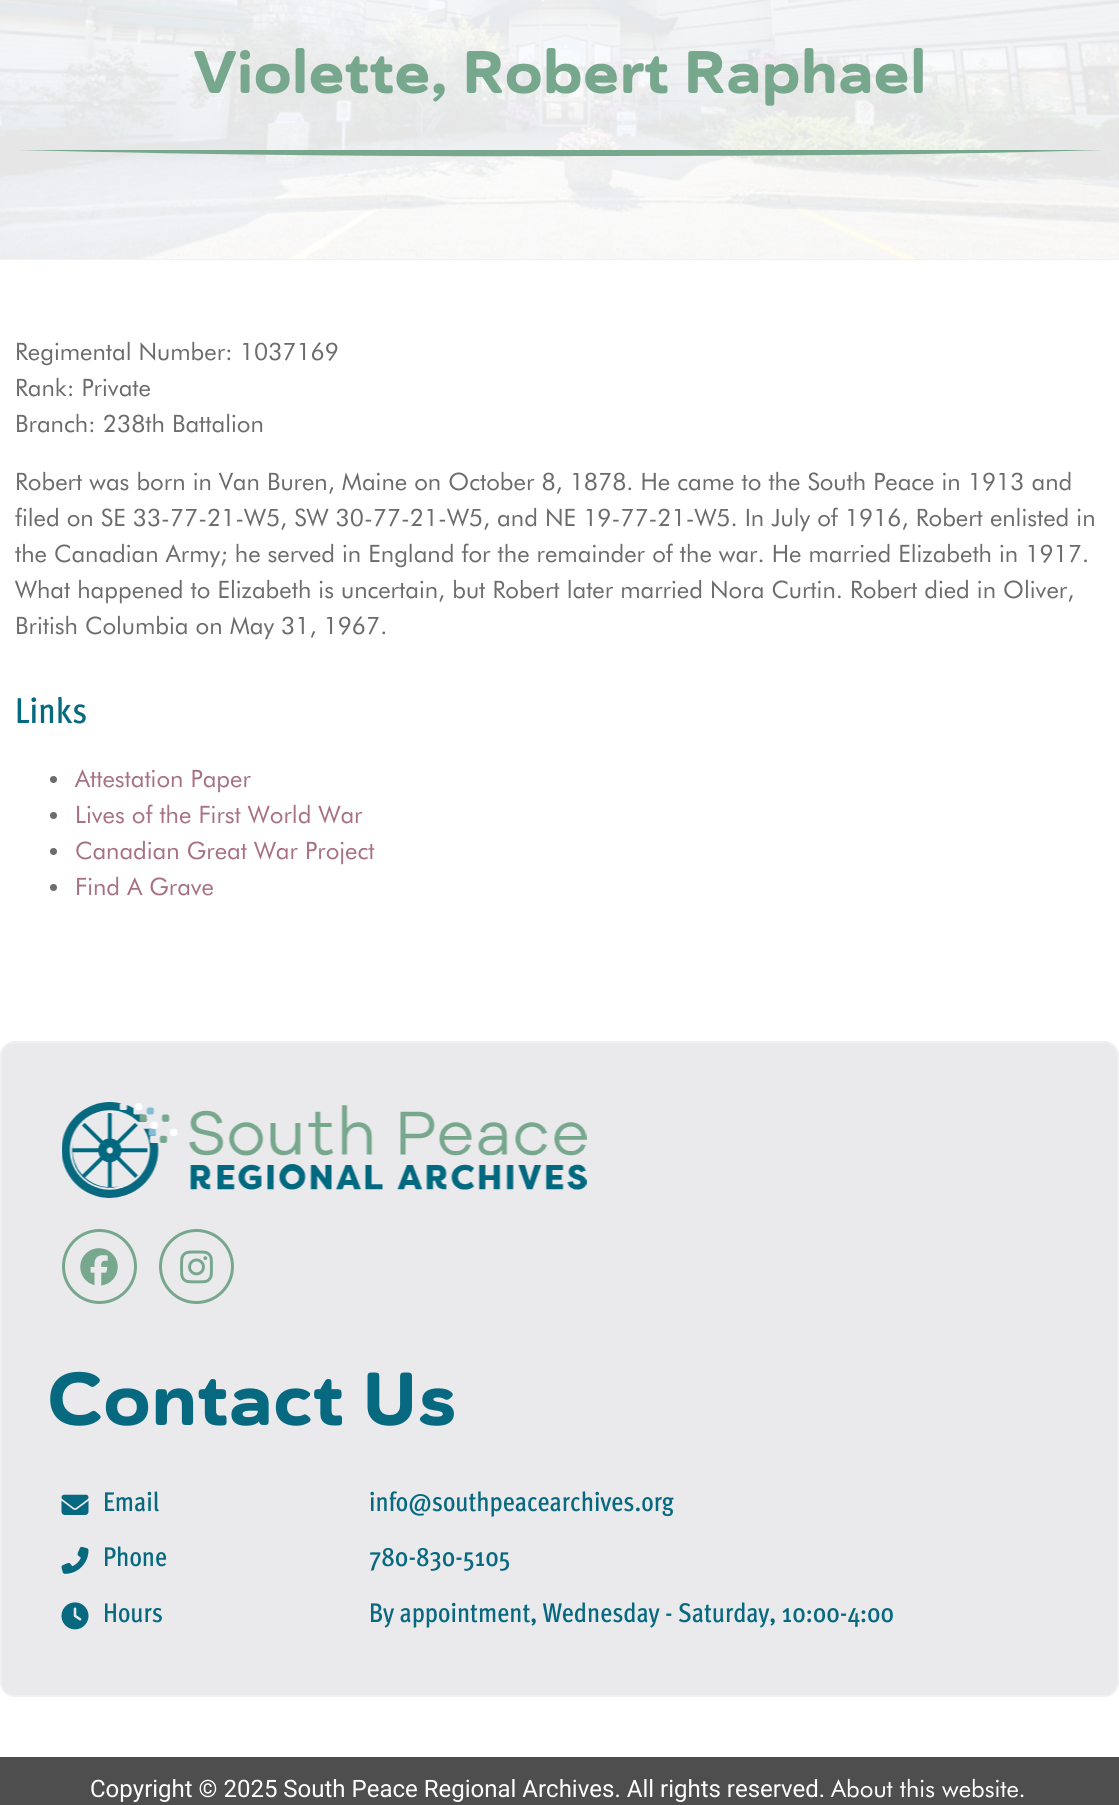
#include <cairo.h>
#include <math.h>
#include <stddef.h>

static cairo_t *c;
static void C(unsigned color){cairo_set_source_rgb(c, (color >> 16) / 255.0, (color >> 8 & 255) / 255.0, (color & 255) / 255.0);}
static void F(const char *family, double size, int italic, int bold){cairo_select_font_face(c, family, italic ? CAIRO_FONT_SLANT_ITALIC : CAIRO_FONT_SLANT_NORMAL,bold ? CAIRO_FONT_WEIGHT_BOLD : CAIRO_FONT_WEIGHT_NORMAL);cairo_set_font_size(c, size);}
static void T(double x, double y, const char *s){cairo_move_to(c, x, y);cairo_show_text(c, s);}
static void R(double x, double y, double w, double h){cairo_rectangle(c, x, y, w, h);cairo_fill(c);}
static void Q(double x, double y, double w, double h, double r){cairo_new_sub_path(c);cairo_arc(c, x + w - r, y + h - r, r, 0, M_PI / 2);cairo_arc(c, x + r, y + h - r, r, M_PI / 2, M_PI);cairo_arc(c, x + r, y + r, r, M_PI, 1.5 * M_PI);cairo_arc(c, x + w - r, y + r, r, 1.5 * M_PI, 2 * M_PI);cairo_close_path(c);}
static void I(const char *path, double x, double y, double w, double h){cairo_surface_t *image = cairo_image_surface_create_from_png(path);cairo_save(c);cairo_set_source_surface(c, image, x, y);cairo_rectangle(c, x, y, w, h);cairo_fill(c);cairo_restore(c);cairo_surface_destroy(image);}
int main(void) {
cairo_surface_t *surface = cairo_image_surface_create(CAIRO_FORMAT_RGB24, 1119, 1805);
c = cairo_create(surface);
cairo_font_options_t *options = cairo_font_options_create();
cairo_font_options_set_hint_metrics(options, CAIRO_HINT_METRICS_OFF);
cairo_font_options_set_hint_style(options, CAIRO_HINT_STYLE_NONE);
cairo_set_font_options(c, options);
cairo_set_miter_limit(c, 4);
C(0xffffff);
cairo_paint(c);
C(0xf2f2f2);
R(0,259,1119,1);
I("1.png",0,0,1119,259);
F("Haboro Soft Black",60,0,0);
C(0x77a78d);
T(193,93,"Violette, Robert Raphael");
cairo_new_path(c);
cairo_move_to(c,17,150);
cairo_line_to(c,1102,150);
cairo_curve_to(c,936,155,769,156,603,156);
cairo_curve_to(c,407,157,212,155,17,150);
cairo_close_path(c);
cairo_fill(c);
F("Futura",24,0,0);
C(0x6c6c6c);
T(15,360,"Regimental Number: 1037169");
T(15,396,"Rank: Private");
T(15,432,"Branch: 238th Battalion");
T(15,490,"Robert was born in Van Buren, Maine on October 8, 1878. He came to the South Peace in 1913 and");
T(15,526,"filed on SE 33-77-21-W5, SW 30-77-21-W5, and NE 19-77-21-W5. In July of 1916, Robert enlisted in");
T(15,562,"the Canadian Army; he served in England for the remainder of the war. He married Elizabeth in 1917.");
T(15,598,"What happened to Elizabeth is uncertain, but Robert later married Nora Curtin. Robert died in Oliver,");
T(15,634,"British Columbia on May 31, 1967.");
F("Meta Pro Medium",36,0,0);
C(0x076980);
T(15,723,"Links");
C(0x6c6c6c);
cairo_new_path(c);
cairo_arc(c,53.5,779.5,3.5,0,2 * M_PI);
cairo_fill(c);
F("Futura",24,0,0);
C(0xa87085);
T(75,787,"Attestation Paper");
C(0x6c6c6c);
cairo_new_path(c);
cairo_arc(c,53.5,815.5,3.5,0,2 * M_PI);
cairo_fill(c);
C(0xa87085);
T(75,823,"Lives of the First World War");
C(0x6c6c6c);
cairo_new_path(c);
cairo_arc(c,53.5,851.5,3.5,0,2 * M_PI);
cairo_fill(c);
C(0xa87085);
T(75,859,"Canadian Great War Project");
C(0x6c6c6c);
cairo_new_path(c);
cairo_arc(c,53.5,887.5,3.5,0,2 * M_PI);
cairo_fill(c);
C(0xa87085);
T(75,895,"Find A Grave");
C(0xeae9eb);
Q(0,1041,1119,656,15);
cairo_fill(c);
Q(1,1042,1117,654,14);
cairo_set_source_rgba(c,1,1,1,0.3);
cairo_stroke(c);
I("2.png",62,1102,525,96);
cairo_arc(c,99.5,1266.5,36,0,2 * M_PI);
C(0x77a78d);
cairo_set_line_width(c,3);
cairo_stroke(c);
I("3.png",80,1248,38,38);
cairo_arc(c,196.5,1266.5,36,0,2 * M_PI);
cairo_stroke(c);
I("4.png",180,1250,33,34);
F("Haboro Soft Black",75,0,0);
C(0x076980);
T(47,1425,"Contact Us");
I("5.png",61,1494,28,21);
F("Meta Pro Medium",27,0,0);
T(103,1511,"Email");
I("6.png",61,1546,28,28);
T(103,1566,"Phone");
I("7.png",61,1602,28,28);
T(103,1622,"Hours");
T(369,1511,"info@southpeacearchives.org");
T(369,1566,"780-830-5105");
T(369,1622,"By appointment, Wednesday - Saturday, 10:00-4:00");
C(0x4e4e4e);
R(0,1757,1119,48);
F("Roboto",24,0,0);
C(0xffffff);
T(90,1797,"Copyright © 2025 South Peace Regional Archives. All rights reserved.");
F("Futura",24,0,0);
T(831,1797,"About this website");
F("Roboto",24,0,0);
T(1019,1797,".");
cairo_surface_write_to_png(surface, "o.png");
cairo_font_options_destroy(options);
cairo_destroy(c);
cairo_surface_destroy(surface);
return 0;
}
